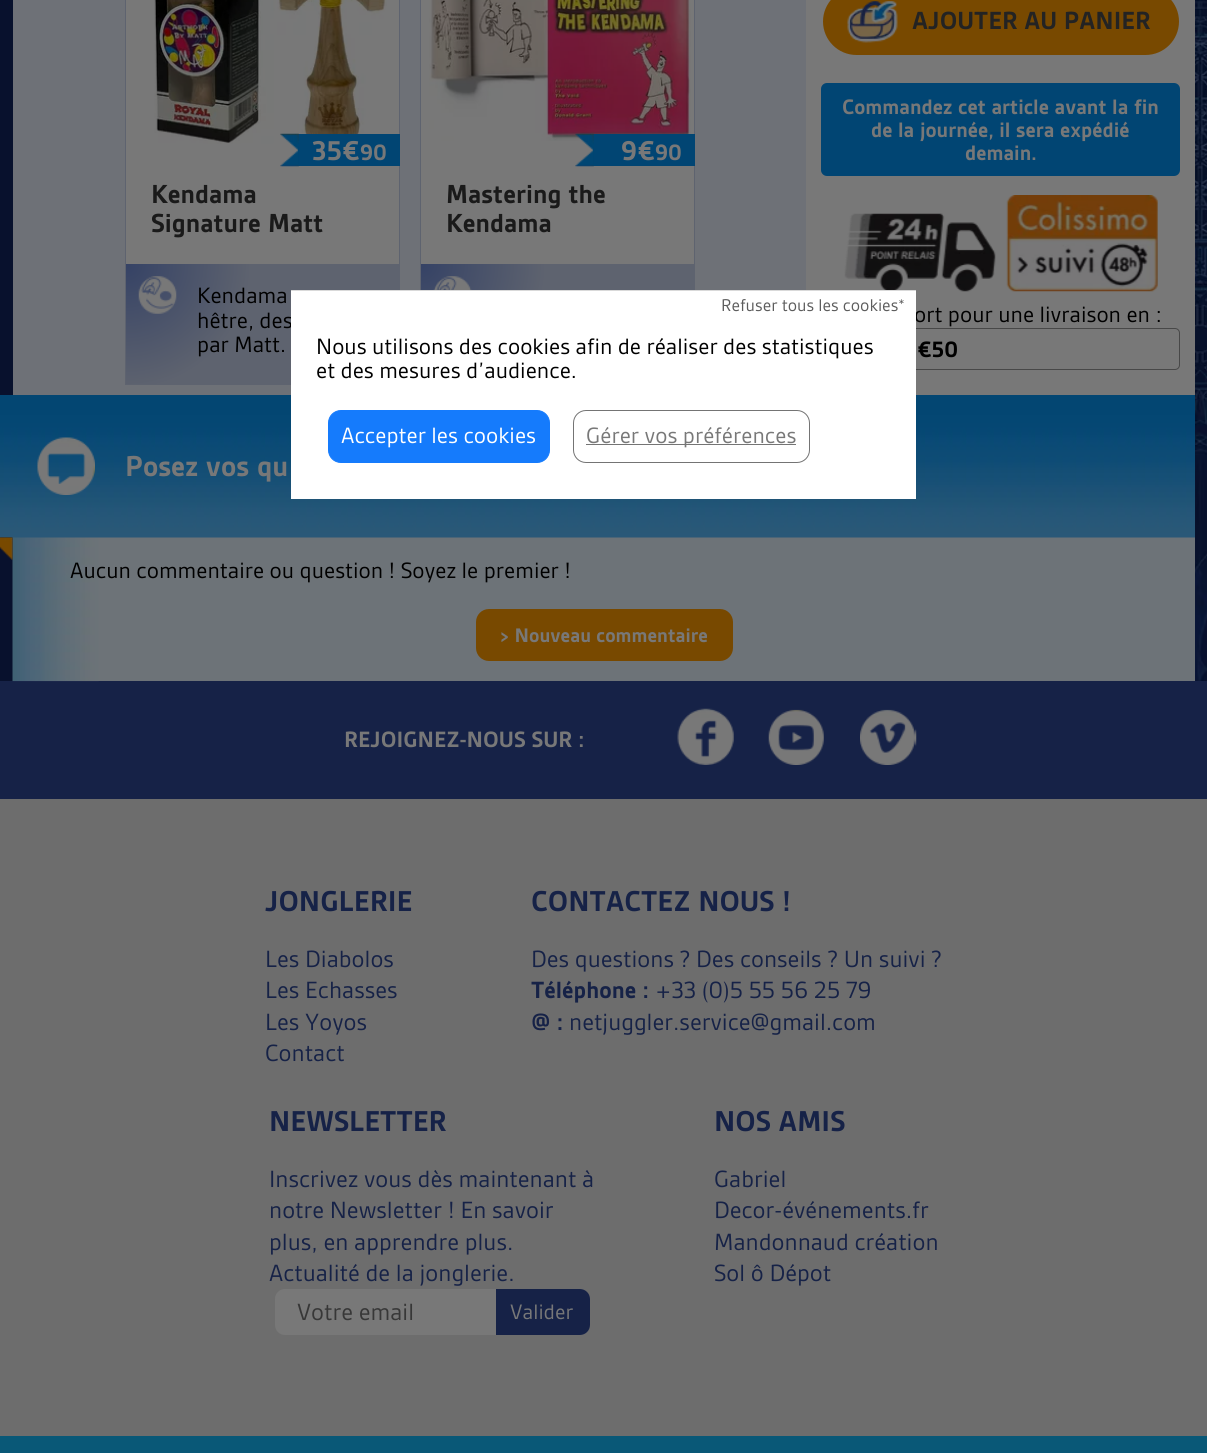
#include <cairo.h>
#include <math.h>
#include <stddef.h>

static cairo_t *c;
static void C(unsigned color){cairo_set_source_rgb(c, (color >> 16) / 255.0, (color >> 8 & 255) / 255.0, (color & 255) / 255.0);}
static void F(const char *family, double size, int italic, int bold){cairo_select_font_face(c, family, italic ? CAIRO_FONT_SLANT_ITALIC : CAIRO_FONT_SLANT_NORMAL,bold ? CAIRO_FONT_WEIGHT_BOLD : CAIRO_FONT_WEIGHT_NORMAL);cairo_set_font_size(c, size);}
static void T(double x, double y, const char *s){cairo_move_to(c, x, y);cairo_show_text(c, s);}
static void R(double x, double y, double w, double h){cairo_rectangle(c, x, y, w, h);cairo_fill(c);}
static void Q(double x, double y, double w, double h, double r){cairo_new_sub_path(c);cairo_arc(c, x + w - r, y + h - r, r, 0, M_PI / 2);cairo_arc(c, x + r, y + h - r, r, M_PI / 2, M_PI);cairo_arc(c, x + r, y + r, r, M_PI, 1.5 * M_PI);cairo_arc(c, x + w - r, y + r, r, 1.5 * M_PI, 2 * M_PI);cairo_close_path(c);}
static void I(const char *path, double x, double y, double w, double h){cairo_surface_t *image = cairo_image_surface_create_from_png(path);cairo_save(c);cairo_set_source_surface(c, image, x, y);cairo_rectangle(c, x, y, w, h);cairo_fill(c);cairo_restore(c);cairo_surface_destroy(image);}
int main(void) {
cairo_surface_t *surface = cairo_image_surface_create(CAIRO_FORMAT_RGB24, 1207, 1453);
c = cairo_create(surface);
cairo_font_options_t *options = cairo_font_options_create();
cairo_font_options_set_hint_metrics(options, CAIRO_HINT_METRICS_OFF);
cairo_font_options_set_hint_style(options, CAIRO_HINT_STYLE_NONE);
cairo_set_font_options(c, options);
cairo_set_miter_limit(c, 4);
cairo_pattern_t *gradient;
C(0xffffff);
cairo_paint(c);
I("1.png",0,0,1207,681);
C(0x787878);
R(806,0,389,395);
C(0x6e7177);
R(13,0,793,395);
C(0x787878);
R(126,0,273,264);
cairo_rectangle(c,125.5,-.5,274,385);
C(0x5e636f);
cairo_set_line_width(c,1);
cairo_stroke(c);
I("2.png",154,0,233,144);
C(0x014573);
R(298,134,102,32);
I("3.png",280,133,19,34);
F("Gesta",26,0,1);
C(0x787878);
T(312,160,"35€");
F("Gesta",21.25,0,1);
T(360,160,"90");
F("Gesta",25,0,1);
C(0x1a1a1a);
T(151,203,"Kendama");
T(151,232,"Signature Matt");
gradient = cairo_pattern_create_radial(126,264,0,126,264,298);
cairo_pattern_add_color_stop_rgba(gradient,0,0.208,0.259,0.396,1);
cairo_pattern_add_color_stop_rgba(gradient,.42,0.369,0.388,0.435,1);
cairo_set_source(c,gradient);
cairo_pattern_destroy(gradient);
R(126,264,273,120);
I("4.png",138,276,39,38);
F("Gesta",21.25,0,0);
C(0x000000);
T(197,303,"Kendama");
T(197,328,"hêtre, des");
T(197,352,"par Matt.");
C(0x787878);
R(421,0,273,264);
cairo_rectangle(c,420.5,-.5,274,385);
C(0x5e636f);
cairo_stroke(c);
I("5.png",429,0,262,141);
C(0x014573);
R(593,134,102,32);
I("6.png",575,133,19,34);
F("Gesta",26,0,1);
C(0x787878);
T(621,160,"9€");
F("Gesta",21.25,0,1);
T(655,160,"90");
F("Gesta",25,0,1);
C(0x1a1a1a);
T(446,203,"Mastering the");
T(446,232,"Kendama");
gradient = cairo_pattern_create_radial(421,264,0,421,264,298);
cairo_pattern_add_color_stop_rgba(gradient,0,0.208,0.259,0.396,1);
cairo_pattern_add_color_stop_rgba(gradient,.42,0.369,0.388,0.435,1);
cairo_set_source(c,gradient);
cairo_pattern_destroy(gradient);
R(421,264,273,26);
I("7.png",433,276,39,14);
C(0x784900);
Q(823,-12,356,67,33.5);
cairo_fill(c);
I("8.png",847,1,51,42);
F("Gesta",23.75,0,1);
C(0x232323);
T(912,29,"AJOUTER AU PANIER");
C(0x014573);
Q(821,83,359,93,6);
cairo_fill(c);
F("Gesta",20,0,1);
C(0x787878);
T(842,114,"Commandez cet article avant la fin");
T(871,137,"de la journée, il sera expédié");
T(965,160,"demain.");
I("9.png",844,213,152,79);
I("10.png",1006,195,152,97);
F("Gesta",21.25,0,0);
C(0x000000);
T(914,322,"ort pour une livraison en :");
Q(821.5,328.5,358,41,4.5);
C(0x484848);
cairo_stroke(c);
F("Gesta",21.25,0,1);
C(0x000000);
T(917,357,"€50");
C(0x6d7378);
R(98,537,1097,144);
C(0x162247);
R(0,681,1207,118);
I("11.png",12,537,87,145);
I("12.png",0,395,1195,143);
I("13.png",37,437,58,58);
F("Gesta",27.5,0,1);
C(0x787878);
T(125,476,"Posez vos qu");
I("14.png",0,537,13,23);
F("Gesta",21.25,0,0);
C(0x000000);
T(70,578,"Aucun commentaire ou question ! Soyez le premier !");
C(0x784900);
Q(476,609,257,52,13);
cairo_fill(c);
F("Gesta",18.75,0,1);
C(0x787878);
T(500,642,"> Nouveau commentaire");
F("Gesta",21.25,0,1);
T(344,747,"REJOIGNEZ-NOUS SUR :");
I("15.png",677,708,57,57);
I("16.png",768,709,56,56);
I("17.png",860,709,57,56);
C(0x6d6d6d);
R(0,799,1207,637);
F("Gesta",27.5,0,1);
C(0x162247);
T(265,911,"JONGLERIE");
F("Gesta",22.5,0,0);
T(265,967,"Les Diabolos");
T(265,998,"Les Echasses");
T(265,1030,"Les Yoyos");
T(265,1061,"Contact");
F("Gesta",27.5,0,1);
T(531,911,"CONTACTEZ NOUS !");
F("Gesta",22.5,0,0);
T(531,967,"Des questions ? Des conseils ? Un suivi ?");
F("Gesta",22.5,0,1);
T(531,998,"Téléphone :");
F("Gesta",22.5,0,0);
T(655,998,"+33 (0)5 55 56 25 79");
F("Gesta",22.5,0,1);
T(531,1030,"@ :");
F("Gesta",22.5,0,0);
T(569,1030,"netjuggler.service@gmail.com");
F("Gesta",27.5,0,1);
T(269,1131,"NEWSLETTER");
F("Gesta",22.5,0,0);
T(269,1187,"Inscrivez vous dès maintenant à");
T(269,1218,"notre Newsletter ! En savoir");
T(269,1250,"plus, en apprendre plus.");
T(269,1281,"Actualité de la jonglerie.");
C(0x787878);
Q(275,1289,315,46,10);
cairo_fill(c);
C(0x373737);
T(297,1320,"Votre email");
C(0x162247);
cairo_new_path(c);
cairo_move_to(c,496,1289);
cairo_line_to(c,580,1289);
cairo_curve_to(c,585.5,1289,590,1293.5,590,1299);
cairo_line_to(c,590,1325);
cairo_curve_to(c,590,1330.5,585.5,1335,580,1335);
cairo_line_to(c,496,1335);
cairo_close_path(c);
cairo_fill(c);
F("Gesta",20,0,0);
C(0x787878);
T(510,1319,"Valider");
F("Gesta",27.5,0,1);
C(0x162247);
T(714,1131,"NOS AMIS");
F("Gesta",22.5,0,0);
T(714,1187,"Gabriel");
T(714,1218,"Decor-événements.fr");
T(714,1250,"Mandonnaud création");
T(714,1281,"Sol ô Dépot");
C(0x095877);
R(0,1436,1207,17);
C(0xffffff);
R(291,291,625,208);
C(0xd9d9d9);
R(291,290,625,1);
F("Gesta",16.25,0,0);
C(0x5c5c5c);
T(721,311,"Refuser tous les cookies*");
F("Gesta",21.25,0,0);
C(0x000000);
T(316,354,"Nous utilisons des cookies afin de réaliser des statistiques");
T(316,378,"et des mesures d’audience.");
C(0x157bfc);
Q(328.5,410.5,221,52,12.5);
cairo_fill_preserve(c);
cairo_stroke(c);
C(0xffffff);
T(341,443,"Accepter les cookies");
Q(573.5,410.5,236,52,12.5);
C(0x747474);
cairo_stroke(c);
R(586,444,210,1);
C(0x787878);
T(586,443,"Gérer vos préférences");
cairo_surface_write_to_png(surface, "o.png");
cairo_font_options_destroy(options);
cairo_destroy(c);
cairo_surface_destroy(surface);
return 0;
}
